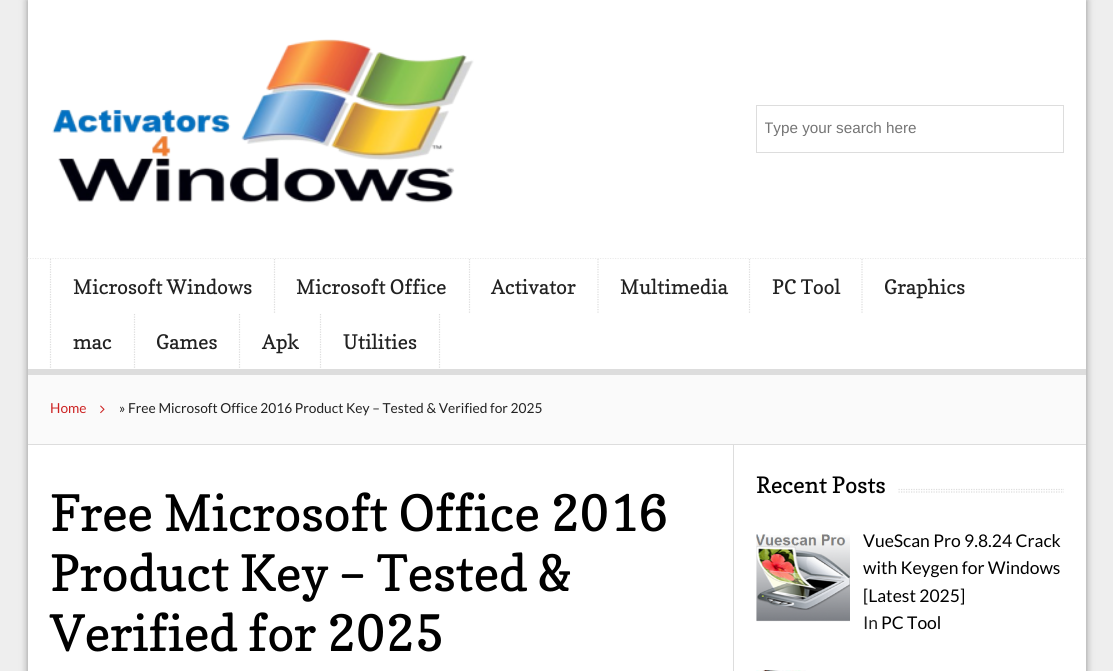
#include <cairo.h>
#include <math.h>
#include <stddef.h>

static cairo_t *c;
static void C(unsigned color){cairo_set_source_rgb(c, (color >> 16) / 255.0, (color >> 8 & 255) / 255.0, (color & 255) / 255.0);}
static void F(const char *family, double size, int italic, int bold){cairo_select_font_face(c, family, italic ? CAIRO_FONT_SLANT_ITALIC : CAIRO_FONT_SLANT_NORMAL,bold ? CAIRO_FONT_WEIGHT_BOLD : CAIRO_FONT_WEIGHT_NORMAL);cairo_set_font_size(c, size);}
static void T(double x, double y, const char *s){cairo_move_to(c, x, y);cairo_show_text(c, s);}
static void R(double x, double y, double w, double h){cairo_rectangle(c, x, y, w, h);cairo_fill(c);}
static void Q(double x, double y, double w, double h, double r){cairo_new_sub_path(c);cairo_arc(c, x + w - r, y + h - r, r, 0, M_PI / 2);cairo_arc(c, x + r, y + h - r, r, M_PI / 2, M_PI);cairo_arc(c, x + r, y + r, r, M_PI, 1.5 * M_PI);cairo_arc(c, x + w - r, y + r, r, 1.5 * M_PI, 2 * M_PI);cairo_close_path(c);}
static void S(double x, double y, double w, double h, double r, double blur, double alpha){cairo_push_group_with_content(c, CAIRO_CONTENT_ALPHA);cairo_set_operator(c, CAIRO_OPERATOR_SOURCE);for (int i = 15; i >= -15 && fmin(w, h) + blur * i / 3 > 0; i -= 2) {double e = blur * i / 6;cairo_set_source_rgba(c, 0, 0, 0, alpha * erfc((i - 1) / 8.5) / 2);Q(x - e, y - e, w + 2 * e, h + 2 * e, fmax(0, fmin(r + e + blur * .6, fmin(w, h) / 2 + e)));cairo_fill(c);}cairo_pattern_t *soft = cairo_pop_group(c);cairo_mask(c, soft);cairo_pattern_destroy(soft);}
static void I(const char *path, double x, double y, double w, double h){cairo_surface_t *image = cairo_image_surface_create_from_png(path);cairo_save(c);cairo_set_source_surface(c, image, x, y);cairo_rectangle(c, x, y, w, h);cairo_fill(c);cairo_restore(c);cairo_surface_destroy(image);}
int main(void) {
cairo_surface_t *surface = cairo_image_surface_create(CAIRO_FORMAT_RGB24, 1113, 671);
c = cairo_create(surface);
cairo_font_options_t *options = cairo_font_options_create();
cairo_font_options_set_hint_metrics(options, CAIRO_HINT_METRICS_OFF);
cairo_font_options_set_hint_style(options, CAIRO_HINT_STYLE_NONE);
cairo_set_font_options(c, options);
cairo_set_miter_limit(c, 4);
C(0xeeeeee);
cairo_paint(c);
C(0x000000);
S(28,0,1058,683,0,4,.4);
C(0xffffff);
R(28,258,1058,413);
cairo_new_path(c);
cairo_move_to(c,27.5,258);
cairo_line_to(c,1086,258);
C(0xdddddd);
cairo_set_line_width(c,1.2);
cairo_set_dash(c,(double[]){1.25,1.25},2,0);
cairo_stroke(c);
C(0xffffff);
R(28,0,1058,258);
I("1.png",52,39,422,164);
cairo_rectangle(c,756.5,105.5,307,47);
C(0xdddddd);
cairo_set_line_width(c,1);
cairo_set_dash(c,NULL,0,0);
cairo_stroke(c);
cairo_save(c);
cairo_rectangle(c,765,119,230,17);
cairo_clip(c);
F("Liberation Sans",15.25,0,0);
C(0x757575);
T(764,133,"Type your search here");
cairo_restore(c);
cairo_new_path(c);
cairo_move_to(c,50.5,259);
cairo_line_to(c,50.5,314);
cairo_set_line_width(c,1.2);
cairo_set_dash(c,(double[]){1.25,1.25},2,0);
cairo_stroke(c);
F("Copse",20,0,0);
C(0x222222);
T(73,294,"Microsoft Windows");
cairo_new_path(c);
cairo_move_to(c,274.5,259);
cairo_line_to(c,274.5,314);
C(0xdddddd);
cairo_stroke(c);
C(0x222222);
T(296,294,"Microsoft Office");
cairo_new_path(c);
cairo_move_to(c,469.5,259);
cairo_line_to(c,469.5,314);
C(0xdddddd);
cairo_stroke(c);
C(0x222222);
T(491,294,"Activator");
cairo_new_path(c);
cairo_move_to(c,598,259);
cairo_line_to(c,598,314);
C(0xdddddd);
cairo_stroke(c);
C(0x222222);
T(620,294,"Multimedia");
cairo_new_path(c);
cairo_move_to(c,749.5,259);
cairo_line_to(c,749.5,314);
C(0xdddddd);
cairo_stroke(c);
C(0x222222);
T(772,294,"PC Tool");
cairo_new_path(c);
cairo_move_to(c,862,259);
cairo_line_to(c,862,314);
C(0xdddddd);
cairo_stroke(c);
C(0x222222);
T(884,294,"Graphics");
cairo_new_path(c);
cairo_move_to(c,50.5,314);
cairo_line_to(c,50.5,369);
C(0xdddddd);
cairo_stroke(c);
C(0x222222);
T(73,349,"mac");
cairo_new_path(c);
cairo_move_to(c,134.5,314);
cairo_line_to(c,134.5,369);
C(0xdddddd);
cairo_stroke(c);
C(0x222222);
T(156,349,"Games");
cairo_new_path(c);
cairo_move_to(c,239.5,314);
cairo_line_to(c,239.5,369);
C(0xdddddd);
cairo_stroke(c);
C(0x222222);
T(262,349,"Apk");
cairo_new_path(c);
cairo_move_to(c,439.5,314);
cairo_line_to(c,439.5,369);
C(0xdddddd);
cairo_stroke(c);
cairo_new_path(c);
cairo_move_to(c,320.5,314);
cairo_line_to(c,320.5,369);
cairo_stroke(c);
C(0x222222);
T(343,349,"Utilities");
C(0xdddddd);
R(28,369,1058,6);
C(0xfafafa);
R(28,375,1058,69);
C(0xdddddd);
R(28,444,1058,1);
F("Lato",13.75,0,0);
C(0xcc2222);
T(50,413,"Home");
I("2.png",100,405,5,9);
C(0x222222);
T(119,413,"» Free Microsoft Office 2016 Product Key – Tested & Verified for 2025");
F("Copse",50,0,0);
C(0x000000);
T(50,531,"Free Microsoft Office 2016");
T(50,591,"Product Key – Tested &");
T(50,651,"Verified for 2025");
C(0xdddddd);
R(733,445,1,226);
cairo_new_path(c);
cairo_move_to(c,756,489.5);
cairo_line_to(c,1064,489.5);
cairo_stroke(c);
cairo_new_path(c);
cairo_move_to(c,756,492);
cairo_line_to(c,1064,492);
cairo_stroke(c);
C(0xffffff);
R(756,488,142,5);
F("Copse",22.5,0,0);
C(0x000000);
T(756,493,"Recent Posts");
I("3.png",756,534,94,88);
F("Lato",17.5,0,0);
T(863,547,"VueScan Pro 9.8.24 Crack");
T(863,574,"with Keygen for Windows");
T(863,602,"[Latest 2025]");
C(0x222222);
T(863,629,"In");
C(0x000000);
T(881,629,"PC Tool");
I("4.png",756,670,50,1);
cairo_surface_write_to_png(surface, "o.png");
cairo_font_options_destroy(options);
cairo_destroy(c);
cairo_surface_destroy(surface);
return 0;
}
